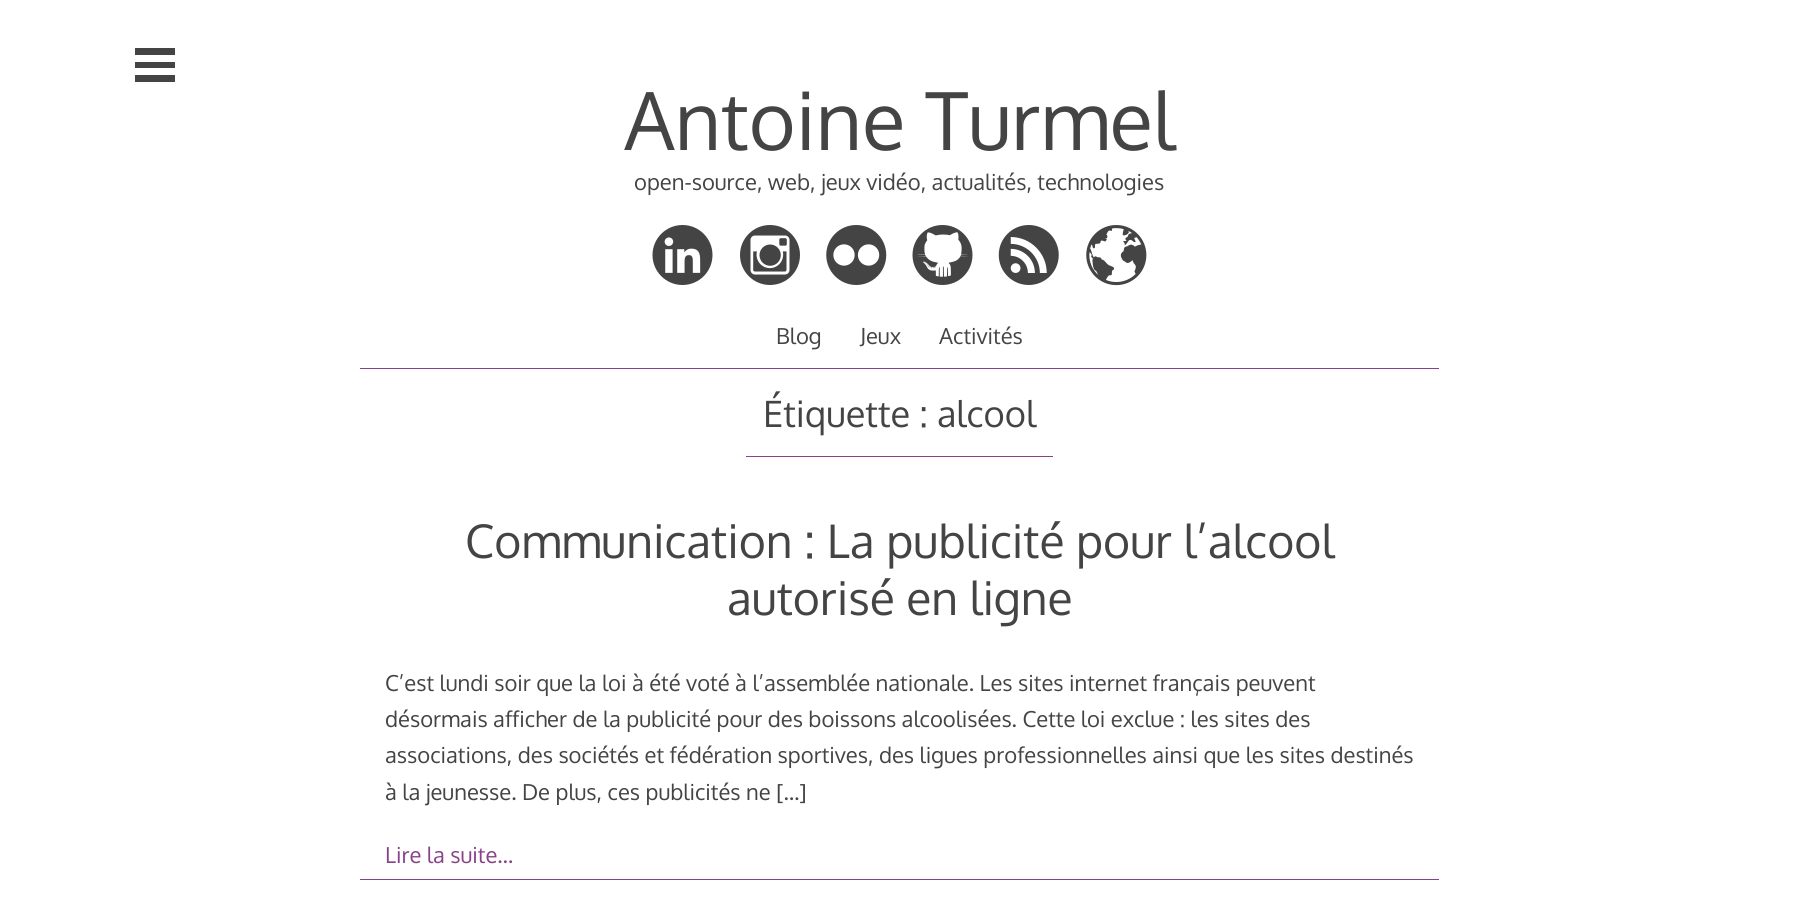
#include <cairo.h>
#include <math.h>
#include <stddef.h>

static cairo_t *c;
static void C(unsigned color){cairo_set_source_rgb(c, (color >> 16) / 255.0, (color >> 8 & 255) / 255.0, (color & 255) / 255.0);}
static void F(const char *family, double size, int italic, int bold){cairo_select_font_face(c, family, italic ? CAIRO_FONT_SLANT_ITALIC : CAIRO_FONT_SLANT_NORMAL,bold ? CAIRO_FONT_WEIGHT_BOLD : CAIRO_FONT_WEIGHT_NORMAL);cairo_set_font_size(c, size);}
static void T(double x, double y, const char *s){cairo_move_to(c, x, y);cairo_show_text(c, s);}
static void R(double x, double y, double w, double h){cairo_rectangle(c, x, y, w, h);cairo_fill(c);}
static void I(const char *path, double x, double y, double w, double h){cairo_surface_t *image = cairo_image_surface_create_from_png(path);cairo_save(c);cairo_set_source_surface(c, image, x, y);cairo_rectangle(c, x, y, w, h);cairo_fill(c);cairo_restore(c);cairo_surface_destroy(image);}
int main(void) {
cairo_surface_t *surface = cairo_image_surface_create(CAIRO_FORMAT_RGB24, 1798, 906);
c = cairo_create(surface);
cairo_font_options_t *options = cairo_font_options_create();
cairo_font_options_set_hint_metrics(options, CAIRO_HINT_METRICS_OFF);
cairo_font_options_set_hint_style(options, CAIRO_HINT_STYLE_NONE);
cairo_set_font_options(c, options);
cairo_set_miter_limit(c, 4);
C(0xffffff);
cairo_paint(c);
C(0x444444);
R(135,48,40,7);
R(135,62,40,6);
R(135,75,40,7);
C(0x894288);
R(360,368,1079,1);
F("Oxygen",80,0,0);
C(0x444444);
T(624,150,"Antoine Turmel");
F("Oxygen",22,0,0);
T(634,190,"open-source, web, jeux vidéo, actualités, technologies");
I("1.png",652,225,61,60);
I("2.png",740,225,60,60);
I("3.png",826,225,61,60);
I("4.png",912,225,61,60);
I("5.png",998,225,61,60);
I("6.png",1086,225,61,61);
T(776,344,"Blog");
T(860,344,"Jeux");
T(939,344,"Activités");
C(0x894288);
R(746,456,307,1);
F("Oxygen",36.25,0,0);
C(0x444444);
T(763,427,"Étiquette : alcool");
F("Oxygen",46.25,0,0);
T(465,558,"Communication : La publicité pour l’alcool");
T(727,615,"autorisé en ligne");
F("Oxygen",22,0,0);
T(385,691,"C’est lundi soir que la loi à été voté à l’assemblée nationale. Les sites internet français peuvent");
T(385,727,"désormais afficher de la publicité pour des boissons alcoolisées. Cette loi exclue : les sites des");
T(385,763,"associations, des sociétés et fédération sportives, des ligues professionnelles ainsi que les sites destinés");
T(385,800,"à la jeunesse. De plus, ces publicités ne […]");
C(0x894288);
R(360,879,1079,1);
T(385,863,"Lire la suite…");
cairo_surface_write_to_png(surface, "o.png");
cairo_font_options_destroy(options);
cairo_destroy(c);
cairo_surface_destroy(surface);
return 0;
}
